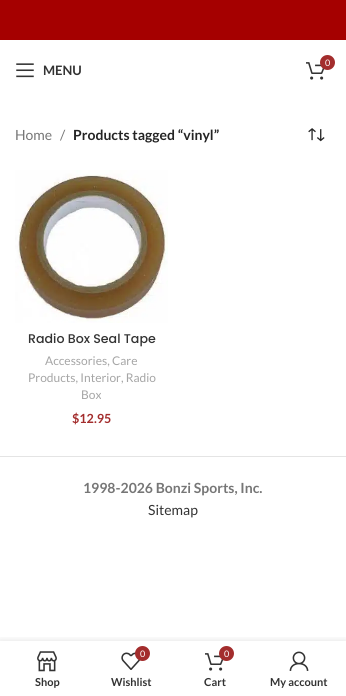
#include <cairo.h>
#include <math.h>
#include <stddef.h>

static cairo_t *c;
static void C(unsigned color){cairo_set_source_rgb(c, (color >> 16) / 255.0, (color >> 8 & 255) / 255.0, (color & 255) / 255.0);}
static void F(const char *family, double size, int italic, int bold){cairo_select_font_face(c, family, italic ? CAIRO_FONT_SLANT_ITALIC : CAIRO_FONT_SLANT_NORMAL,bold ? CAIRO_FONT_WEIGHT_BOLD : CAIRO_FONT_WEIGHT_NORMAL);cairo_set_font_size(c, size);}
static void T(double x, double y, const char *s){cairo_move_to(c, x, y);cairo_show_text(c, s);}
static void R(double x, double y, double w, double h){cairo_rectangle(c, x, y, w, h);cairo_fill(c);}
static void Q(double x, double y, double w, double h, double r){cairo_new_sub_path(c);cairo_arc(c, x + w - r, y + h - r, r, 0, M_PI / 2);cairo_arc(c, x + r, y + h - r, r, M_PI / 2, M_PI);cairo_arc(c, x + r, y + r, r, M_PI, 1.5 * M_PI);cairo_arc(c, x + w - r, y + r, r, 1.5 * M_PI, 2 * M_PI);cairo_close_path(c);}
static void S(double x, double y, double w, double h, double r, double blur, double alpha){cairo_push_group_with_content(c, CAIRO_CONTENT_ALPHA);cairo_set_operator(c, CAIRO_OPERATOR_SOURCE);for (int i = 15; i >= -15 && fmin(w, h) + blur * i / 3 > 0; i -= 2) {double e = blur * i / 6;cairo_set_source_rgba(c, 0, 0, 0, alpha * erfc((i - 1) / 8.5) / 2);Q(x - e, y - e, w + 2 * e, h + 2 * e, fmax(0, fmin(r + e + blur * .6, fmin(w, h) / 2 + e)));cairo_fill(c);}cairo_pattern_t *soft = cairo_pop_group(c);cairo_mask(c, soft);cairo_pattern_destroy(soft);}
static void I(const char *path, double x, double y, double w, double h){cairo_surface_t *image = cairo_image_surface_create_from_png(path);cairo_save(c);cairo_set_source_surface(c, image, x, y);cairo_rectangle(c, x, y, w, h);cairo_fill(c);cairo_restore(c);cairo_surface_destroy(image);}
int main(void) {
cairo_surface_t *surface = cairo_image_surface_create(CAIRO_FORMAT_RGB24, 346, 696);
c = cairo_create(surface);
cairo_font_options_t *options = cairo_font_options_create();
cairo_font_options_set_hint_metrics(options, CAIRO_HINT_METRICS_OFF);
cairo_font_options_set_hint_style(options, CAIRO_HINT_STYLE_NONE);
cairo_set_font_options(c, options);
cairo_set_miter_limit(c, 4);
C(0xffffff);
cairo_paint(c);
C(0xa50000);
R(0,0,346,40);
I("1.png",306,62,19,18);
C(0xa32d2d);
cairo_arc(c,327.5,62.5,7.5,0,2 * M_PI);
cairo_fill(c);
F("Lato",9,0,0);
C(0xffffff);
T(325,66,"0");
I("2.png",16,63,18,15);
F("Lato",13,0,1);
C(0x333333);
T(43,75,"MENU");
F("Lato",14,0,0);
C(0x767676);
T(15,140,"Home");
T(60,140,"/");
F("Lato",14,0,1);
C(0x242424);
T(73,140,"Products tagged “vinyl”");
I("3.png",308,128,17,14);
I("4.png",15,170,153,153);
F("Poppins Medium",12.6,0,0);
C(0x333333);
T(28,343,"Radio Box Seal Tape");
F("Lato",12,0,0);
C(0xa5a5a5);
T(45,365,"Accessories, Care");
T(28,382,"Products, Interior, Radio");
T(81,399,"Box");
F("Lato",12.6,0,1);
C(0xa32d2d);
T(72,423,"$12.95");
C(0xe4e4e4);
R(0,456,346,1);
F("Lato",14,0,1);
C(0x767676);
T(83,493,"1998-2026 Bonzi Sports, Inc.");
F("Lato",14,0,0);
C(0x333333);
T(148,515,"Sitemap");
cairo_save(c);
cairo_rectangle(c,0,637,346,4);
cairo_clip(c);
C(0x000000);
S(0,641,346,55,0,4.5,.12);
cairo_restore(c);
I("5.png",37,651,20,21);
F("Lato",11,0,1);
T(35,686,"Shop");
I("6.png",121,652,20,18);
C(0xa32d2d);
cairo_arc(c,142.5,653.5,7.5,0,2 * M_PI);
cairo_fill(c);
F("Lato",9,0,0);
C(0xffffff);
T(140,657,"0");
F("Lato",11,0,1);
C(0x333333);
T(111,686,"Wishlist");
I("1.png",205,653,19,18);
C(0xa32d2d);
cairo_arc(c,226.5,653.5,7.5,0,2 * M_PI);
cairo_fill(c);
F("Lato",9,0,0);
C(0xffffff);
T(224,657,"0");
F("Lato",11,0,1);
C(0x333333);
T(204,686,"Cart");
I("7.png",289,651,20,20);
T(270,686,"My account");
cairo_surface_write_to_png(surface, "o.png");
cairo_font_options_destroy(options);
cairo_destroy(c);
cairo_surface_destroy(surface);
return 0;
}
